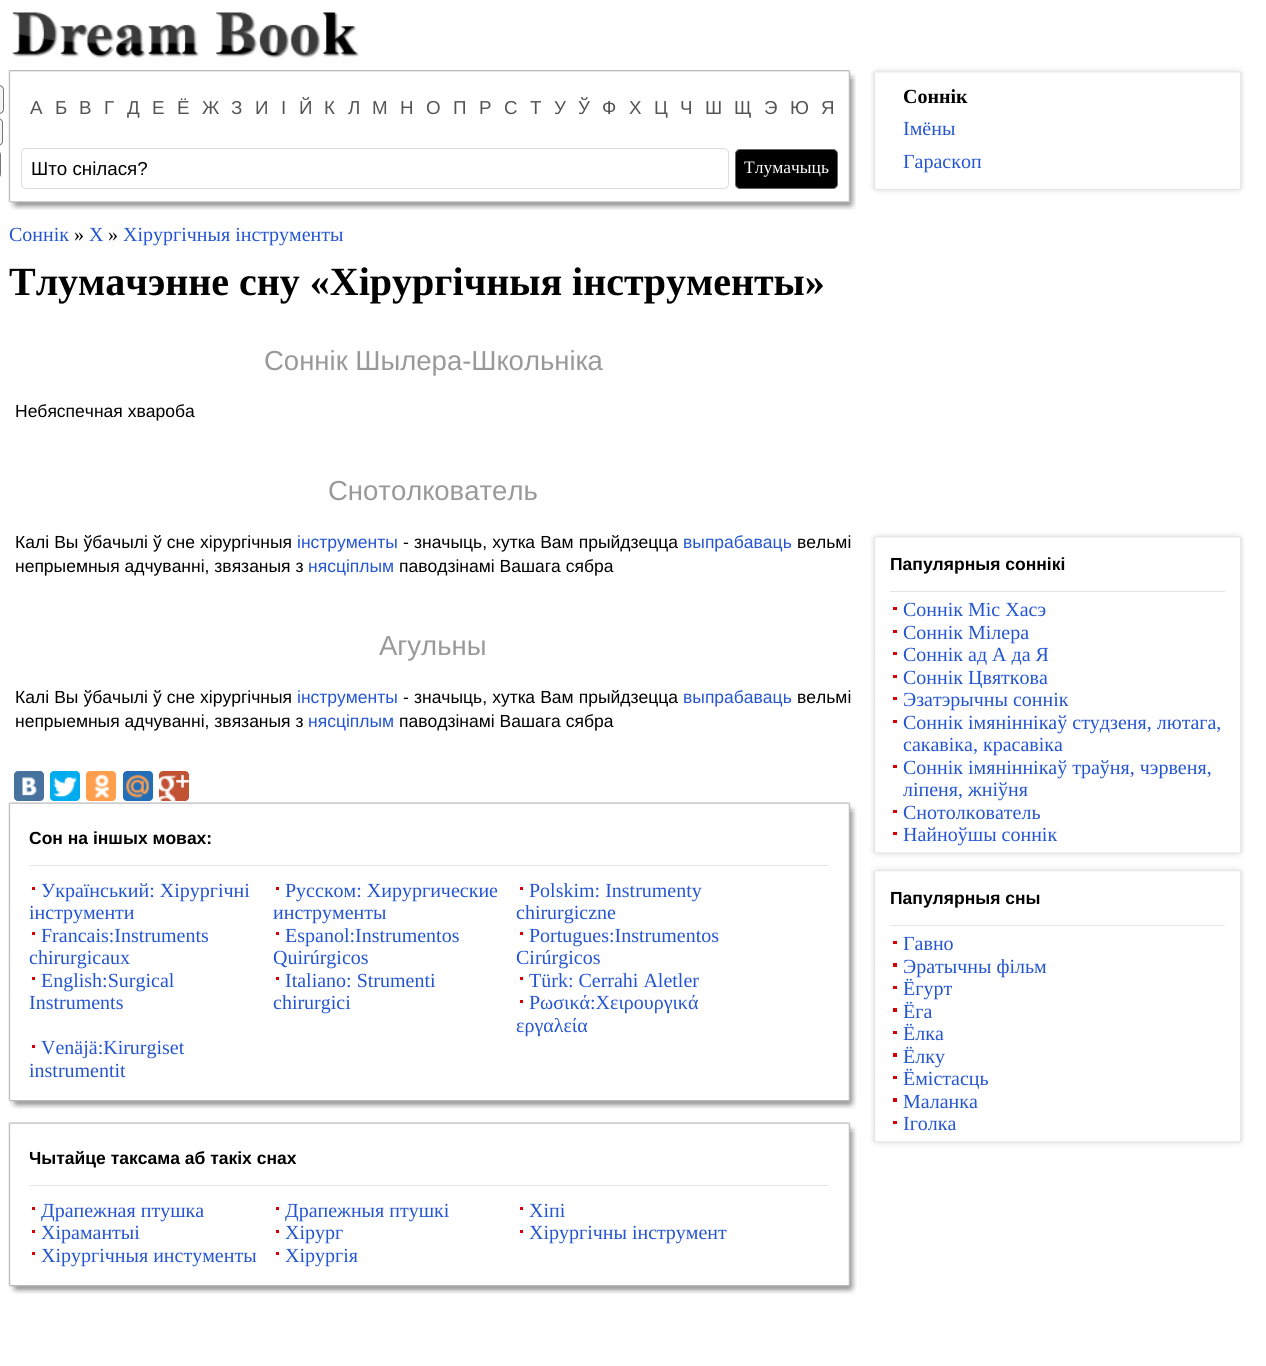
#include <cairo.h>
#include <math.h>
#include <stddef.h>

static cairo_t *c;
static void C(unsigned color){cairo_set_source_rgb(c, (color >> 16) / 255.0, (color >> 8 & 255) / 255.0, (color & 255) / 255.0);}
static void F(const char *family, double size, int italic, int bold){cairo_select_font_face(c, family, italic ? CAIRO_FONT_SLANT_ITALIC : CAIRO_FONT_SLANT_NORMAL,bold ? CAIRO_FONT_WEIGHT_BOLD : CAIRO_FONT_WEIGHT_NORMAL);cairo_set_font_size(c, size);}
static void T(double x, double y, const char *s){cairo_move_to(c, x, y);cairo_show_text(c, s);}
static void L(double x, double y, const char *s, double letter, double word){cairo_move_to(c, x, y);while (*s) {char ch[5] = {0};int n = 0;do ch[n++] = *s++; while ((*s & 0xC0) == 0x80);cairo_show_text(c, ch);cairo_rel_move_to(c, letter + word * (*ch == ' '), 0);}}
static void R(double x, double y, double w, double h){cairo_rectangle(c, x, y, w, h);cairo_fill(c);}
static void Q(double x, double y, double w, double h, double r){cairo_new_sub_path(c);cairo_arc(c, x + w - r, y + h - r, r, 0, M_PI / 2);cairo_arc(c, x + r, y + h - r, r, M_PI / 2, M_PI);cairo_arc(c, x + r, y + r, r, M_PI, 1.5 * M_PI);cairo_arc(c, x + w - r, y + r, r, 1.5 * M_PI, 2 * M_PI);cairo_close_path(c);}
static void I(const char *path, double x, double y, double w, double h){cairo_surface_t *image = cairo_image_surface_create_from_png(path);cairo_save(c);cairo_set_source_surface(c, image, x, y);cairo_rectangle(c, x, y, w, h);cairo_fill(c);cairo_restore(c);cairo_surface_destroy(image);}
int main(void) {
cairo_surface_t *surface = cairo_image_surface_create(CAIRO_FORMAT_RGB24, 1266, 1366);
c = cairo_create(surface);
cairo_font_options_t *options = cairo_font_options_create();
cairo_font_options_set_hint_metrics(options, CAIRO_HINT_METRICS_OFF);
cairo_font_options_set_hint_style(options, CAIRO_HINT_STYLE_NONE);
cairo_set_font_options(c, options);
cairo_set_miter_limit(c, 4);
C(0xffffff);
cairo_paint(c);
I("1.png",12,12,347,46);
I("3.png",8,78,848,124);
I("2.png",8,70,848,9);
C(0xf5f5f5);
Q(-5.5,85.5,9,28,4.5);
cairo_fill_preserve(c);
C(0x777777);
cairo_set_line_width(c,1);
cairo_stroke(c);
C(0xf5f5f5);
Q(-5.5,118.5,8,27,4.5);
cairo_fill_preserve(c);
C(0x777777);
cairo_stroke(c);
Q(-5.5,150.5,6,28,4.5);
cairo_stroke(c);
F("Liberation Sans",18.75,0,0);
C(0x545454);
T(30,114,"А");
T(55,114,"Б");
T(79,114,"В");
T(104,114,"Г");
T(127,114,"Д");
T(152,114,"Е");
T(177,114,"Ё");
T(202,114,"Ж");
T(231,114,"З");
T(255,114,"И");
T(281,114,"І");
T(299,114,"Й");
T(324,114,"К");
T(348,114,"Л");
T(372,114,"М");
T(400,114,"Н");
T(426,114,"О");
T(453,114,"П");
T(479,114,"Р");
T(504,114,"С");
T(530,114,"Т");
T(554,114,"У");
T(578,114,"Ў");
T(602,114,"Ф");
T(629,114,"Х");
T(654,114,"Ц");
T(680,114,"Ч");
T(705,114,"Ш");
T(734,114,"Щ");
T(764,114,"Э");
T(790,114,"Ю");
T(821,114,"Я");
Q(21.5,148.5,707,40,4.5);
C(0xdddddd);
cairo_stroke(c);
C(0x000000);
T(31,175,"Што снілася?");
Q(735.5,149.5,102,39,4.5);
cairo_fill_preserve(c);
C(0x666666);
cairo_stroke(c);
F("Liberation Serif",17.5,0,0);
C(0xffffff);
T(744,173,"Тлумачыць");
I("4.png",8,201,848,9);
F("Liberation Serif",20,0,0);
C(0x2455d0);
T(9,241,"Соннік");
C(0x000000);
T(74,241,"»");
C(0x2455d0);
T(89,241,"Х");
C(0x000000);
T(108,241,"»");
C(0x2455d0);
T(123,241,"Хірургічныя інструменты");
F("Liberation Serif",40,0,1);
C(0x000000);
T(9,295,"Тлумачэнне сну «Хірургічныя інструменты»");
F("Liberation Sans",27.5,0,0);
C(0x999999);
T(264,370,"Соннік Шылера-Школьніка");
F("Liberation Sans",17.5,0,0);
C(0x000000);
T(15,417,"Небяспечная хвароба");
F("Liberation Sans",27.5,0,0);
C(0x999999);
T(328,500,"Снотолкователь");
F("Liberation Sans",17.5,0,0);
C(0x000000);
L(15,548,"Калі Вы ўбачылі ў сне хірургічныя",0,.25);
C(0x2455d0);
T(297,548,"інструменты");
C(0x000000);
L(403,548,"- значыць, хутка Вам прыйдзецца",0,.25);
C(0x2455d0);
T(683,548,"выпрабаваць");
C(0x000000);
T(797,548,"вельмі");
T(15,572,"непрыемныя адчуванні, звязаныя з");
C(0x2455d0);
T(308,572,"нясціплым");
C(0x000000);
T(399,572,"паводзінамі Вашага сябра");
F("Liberation Sans",27.5,0,0);
C(0x999999);
T(379,655,"Агульны");
F("Liberation Sans",17.5,0,0);
C(0x000000);
L(15,703,"Калі Вы ўбачылі ў сне хірургічныя",0,.25);
C(0x2455d0);
T(297,703,"інструменты");
C(0x000000);
L(403,703,"- значыць, хутка Вам прыйдзецца",0,.25);
C(0x2455d0);
T(683,703,"выпрабаваць");
C(0x000000);
T(797,703,"вельмі");
T(15,727,"непрыемныя адчуванні, звязаныя з");
C(0x2455d0);
T(308,727,"нясціплым");
C(0x000000);
T(399,727,"паводзінамі Вашага сябра");
C(0x48729e);
Q(14,771,30,30,4);
cairo_fill(c);
I("5.png",22,777,15,19);
C(0x00aced);
Q(50,771,30,30,4);
cairo_fill(c);
I("6.png",53,777,24,20);
C(0xff9f4d);
Q(86,771,30,30,4);
cairo_fill(c);
I("7.png",94,774,15,24);
C(0x226eb7);
Q(123,771,30,30,4);
cairo_fill(c);
I("8.png",126,774,23,24);
C(0xc25234);
Q(159,771,30,30,4);
cairo_fill(c);
I("9.png",159,774,30,27);
I("10.png",8,802,849,9);
I("11.png",8,811,849,289);
C(0xe5e5e5);
R(29,865,800,1);
F("Liberation Sans",17.5,0,1);
C(0x000000);
T(29,844,"Сон на іншых мовах:");
F("Liberation Serif",20,0,0);
C(0x2455d0);
T(41,897,"Український: Хірургічні");
C(0xd50006);
R(32,887,3,3);
C(0x2455d0);
T(29,919,"інструменти");
T(285,897,"Русском: Хирургические");
C(0xd50006);
R(276,887,3,3);
C(0x2455d0);
T(273,919,"инструменты");
T(529,897,"Polskim: Instrumenty");
C(0xd50006);
R(520,887,3,3);
C(0x2455d0);
T(516,919,"chirurgiczne");
T(41,942,"Francais:Instruments");
C(0xd50006);
R(32,932,3,3);
C(0x2455d0);
T(29,964,"chirurgicaux");
T(285,942,"Espanol:Instrumentos");
C(0xd50006);
R(276,932,3,3);
C(0x2455d0);
T(273,964,"Quirúrgicos");
T(529,942,"Portugues:Instrumentos");
C(0xd50006);
R(520,932,3,3);
C(0x2455d0);
T(516,964,"Cirúrgicos");
T(41,987,"English:Surgical");
C(0xd50006);
R(32,977,3,3);
C(0x2455d0);
T(29,1009,"Instruments");
T(285,987,"Italiano: Strumenti");
C(0xd50006);
R(276,977,3,3);
C(0x2455d0);
T(273,1009,"chirurgici");
T(529,987,"Türk: Cerrahi Aletler");
C(0xd50006);
R(520,977,3,3);
C(0x2455d0);
T(529,1009,"Ρωσικά:Χειρουργικά");
C(0xd50006);
R(520,1000,3,3);
C(0x2455d0);
T(516,1032,"εργαλεία");
T(41,1054,"Venäjä:Kirurgiset");
C(0xd50006);
R(32,1045,3,3);
C(0x2455d0);
T(29,1077,"instrumentit");
I("12.png",8,1100,849,9);
I("10.png",8,1122,849,9);
I("13.png",8,1131,849,154);
C(0xe5e5e5);
R(29,1185,800,1);
F("Liberation Sans",17.5,0,1);
C(0x000000);
T(29,1164,"Чытайце таксама аб такіх снах");
F("Liberation Serif",20,0,0);
C(0x2455d0);
T(41,1217,"Драпежная птушка");
C(0xd50006);
R(32,1207,3,3);
C(0x2455d0);
T(285,1217,"Драпежныя птушкі");
C(0xd50006);
R(276,1207,3,3);
C(0x2455d0);
T(529,1217,"Хіпі");
C(0xd50006);
R(520,1207,3,3);
C(0x2455d0);
T(41,1239,"Хірамантыі");
C(0xd50006);
R(32,1230,3,3);
C(0x2455d0);
T(285,1239,"Хірург");
C(0xd50006);
R(276,1230,3,3);
C(0x2455d0);
T(529,1239,"Хірургічны інструмент");
C(0xd50006);
R(520,1230,3,3);
C(0x2455d0);
T(41,1262,"Хірургічныя инстументы");
C(0xd50006);
R(32,1252,3,3);
C(0x2455d0);
T(285,1262,"Хірургія");
C(0xd50006);
R(276,1252,3,3);
I("12.png",8,1285,849,9);
I("14.png",870,66,375,123);
I("15.png",870,66,375,7);
F("Liberation Serif",20,0,1);
C(0x000000);
T(903,103,"Соннік");
F("Liberation Serif",20,0,0);
C(0x2455d0);
T(903,135,"Імёны");
T(903,168,"Гараскоп");
I("16.png",870,188,375,7);
I("17.png",870,531,375,328);
I("15.png",870,531,375,7);
C(0xe5e5e5);
R(890,591,335,1);
F("Liberation Sans",17.5,0,1);
C(0x000000);
T(890,570,"Папулярныя соннікі");
C(0xd50006);
R(893,607,4,3);
F("Liberation Serif",20,0,0);
C(0x2455d0);
T(903,616,"Соннік Міс Хасэ");
C(0xd50006);
R(893,630,4,3);
C(0x2455d0);
T(903,639,"Соннік Мілера");
C(0xd50006);
R(893,652,4,3);
C(0x2455d0);
T(903,661,"Соннік ад А да Я");
C(0xd50006);
R(893,675,4,3);
C(0x2455d0);
T(903,684,"Соннік Цвяткова");
C(0xd50006);
R(893,697,4,3);
C(0x2455d0);
T(903,706,"Эзатэрычны соннік");
C(0xd50006);
R(893,720,4,3);
C(0x2455d0);
T(903,729,"Соннік імяніннікаў студзеня, лютага,");
T(903,751,"сакавіка, красавіка");
C(0xd50006);
R(893,765,4,3);
C(0x2455d0);
T(903,774,"Соннік імяніннікаў траўня, чэрвеня,");
T(903,796,"ліпеня, жніўня");
C(0xd50006);
R(893,810,4,3);
C(0x2455d0);
T(903,819,"Снотолкователь");
C(0xd50006);
R(893,832,4,3);
C(0x2455d0);
T(903,841,"Найноўшы соннік");
I("18.png",870,852,375,7);
I("19.png",870,871,375,277);
I("20.png",870,865,375,7);
C(0xe5e5e5);
R(890,925,335,1);
F("Liberation Sans",17.5,0,1);
C(0x000000);
T(890,904,"Папулярныя сны");
C(0xd50006);
R(893,941,4,3);
F("Liberation Serif",20,0,0);
C(0x2455d0);
T(903,950,"Гавно");
C(0xd50006);
R(893,963,4,4);
C(0x2455d0);
T(903,973,"Эратычны фільм");
C(0xd50006);
R(893,986,4,3);
C(0x2455d0);
T(903,995,"Ёгурт");
C(0xd50006);
R(893,1008,4,4);
C(0x2455d0);
T(903,1018,"Ёга");
C(0xd50006);
R(893,1031,4,3);
C(0x2455d0);
T(903,1040,"Ёлка");
C(0xd50006);
R(893,1053,4,4);
C(0x2455d0);
T(903,1063,"Ёлку");
C(0xd50006);
R(893,1076,4,3);
C(0x2455d0);
T(903,1085,"Ёмістасць");
C(0xd50006);
R(893,1098,4,4);
C(0x2455d0);
T(903,1108,"Маланка");
C(0xd50006);
R(893,1121,4,3);
C(0x2455d0);
T(903,1130,"Іголка");
I("21.png",870,1141,375,7);
cairo_surface_write_to_png(surface, "o.png");
cairo_font_options_destroy(options);
cairo_destroy(c);
cairo_surface_destroy(surface);
return 0;
}
